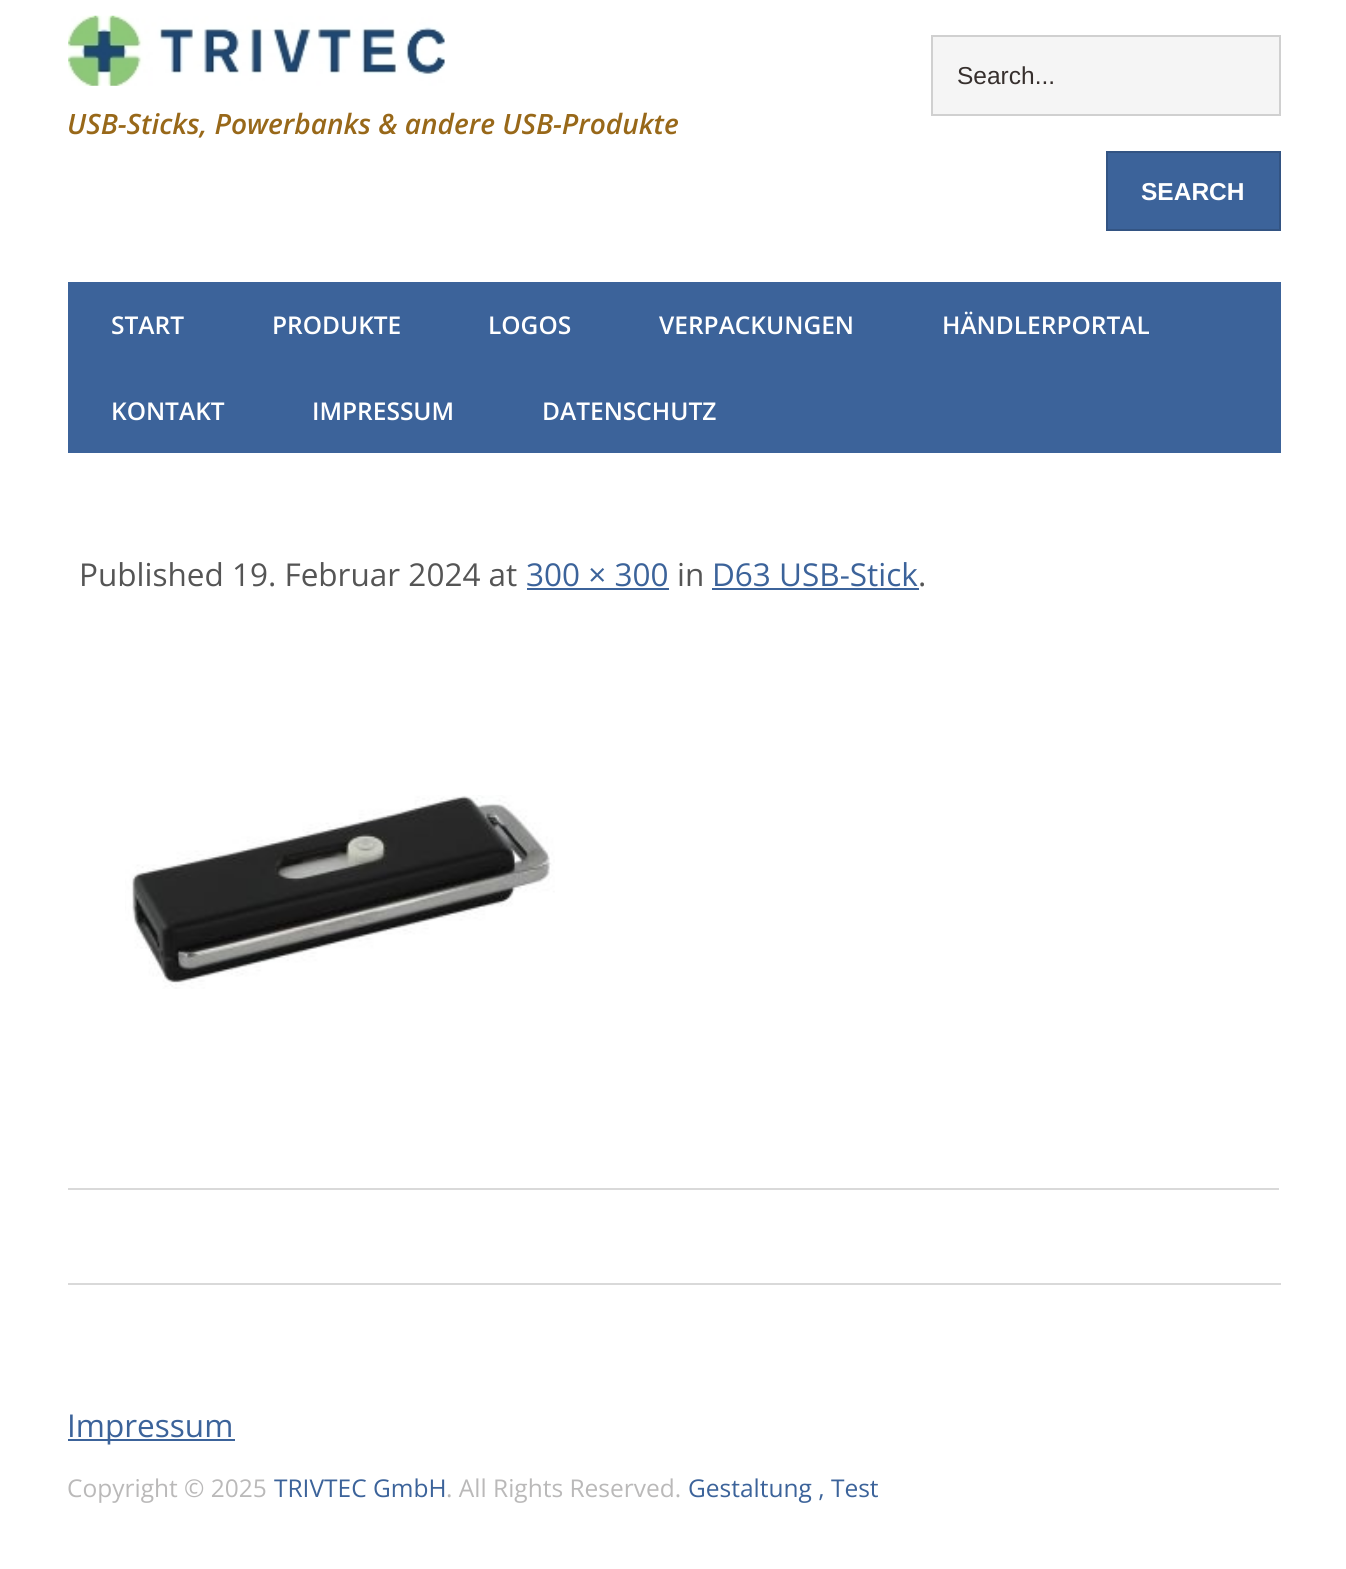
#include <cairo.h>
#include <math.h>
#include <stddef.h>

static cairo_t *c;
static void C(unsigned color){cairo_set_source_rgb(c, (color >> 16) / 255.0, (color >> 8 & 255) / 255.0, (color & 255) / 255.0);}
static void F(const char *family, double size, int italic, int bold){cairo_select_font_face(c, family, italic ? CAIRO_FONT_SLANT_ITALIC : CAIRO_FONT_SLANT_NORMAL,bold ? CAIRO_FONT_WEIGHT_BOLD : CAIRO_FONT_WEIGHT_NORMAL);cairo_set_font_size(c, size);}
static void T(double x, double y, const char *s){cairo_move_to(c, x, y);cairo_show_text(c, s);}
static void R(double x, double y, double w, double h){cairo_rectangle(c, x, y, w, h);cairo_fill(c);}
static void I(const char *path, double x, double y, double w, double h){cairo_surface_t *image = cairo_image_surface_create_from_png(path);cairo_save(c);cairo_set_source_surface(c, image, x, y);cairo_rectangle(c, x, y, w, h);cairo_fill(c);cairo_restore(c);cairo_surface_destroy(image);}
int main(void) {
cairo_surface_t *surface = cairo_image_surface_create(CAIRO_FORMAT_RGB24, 1346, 1569);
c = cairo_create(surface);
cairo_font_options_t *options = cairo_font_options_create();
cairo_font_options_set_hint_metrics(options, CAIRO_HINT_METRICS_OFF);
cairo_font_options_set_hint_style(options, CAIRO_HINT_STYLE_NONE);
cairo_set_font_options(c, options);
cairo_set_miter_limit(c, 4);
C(0xffffff);
cairo_paint(c);
I("1.png",68,15,377,71);
F("Open Sans SemiBold",28,1,0);
C(0x986819);
T(67,134,"USB-Sticks, Powerbanks & andere USB-Produkte");
C(0xf5f5f5);
cairo_rectangle(c,932,36,348,79);
cairo_fill_preserve(c);
C(0xd0d0d0);
cairo_stroke(c);
F("Liberation Sans",24.5,0,0);
C(0x362f2d);
T(957,84,"Search...");
C(0x3c639a);
cairo_rectangle(c,1107,152,173,78);
cairo_fill_preserve(c);
C(0x335483);
cairo_stroke(c);
F("Liberation Sans",24.5,0,1);
C(0xffffff);
T(1141,200,"SEARCH");
C(0x3c639a);
R(68,282,1213,171);
F("Open Sans SemiBold",24.5,0,0);
C(0xffffff);
T(111,334,"START");
T(272,334,"PRODUKTE");
T(488,334,"LOGOS");
T(659,334,"VERPACKUNGEN");
T(942,334,"HÄNDLERPORTAL");
T(111,420,"KONTAKT");
T(312,420,"IMPRESSUM");
T(542,420,"DATENSCHUTZ");
C(0xd9d9d9);
R(68,1188,1211,2);
F("Open Sans",31.5,0,0);
C(0x555555);
T(79,586,"Published 19. Februar 2024 at");
C(0x3c639a);
T(526,586,"300 × 300");
R(527,588,142,2);
C(0x555555);
T(677,586,"in");
C(0x3c639a);
T(712,586,"D63 USB-Stick");
R(712,588,207,2);
C(0x555555);
T(918,586,".");
I("2.png",125,795,430,194);
C(0xd9d9d9);
R(68,1283,1213,2);
C(0x3c639a);
R(68,1439,167,2);
T(67,1437,"Impressum");
F("Open Sans",24.5,0,0);
C(0xbab9b9);
T(67,1497,"Copyright © 2025");
C(0x3c639a);
T(274,1497,"TRIVTEC GmbH");
C(0xbab9b9);
T(446,1497,". All Rights Reserved.");
C(0x3c639a);
T(688,1497,"Gestaltung , Test");
cairo_surface_write_to_png(surface, "o.png");
cairo_font_options_destroy(options);
cairo_destroy(c);
cairo_surface_destroy(surface);
return 0;
}
